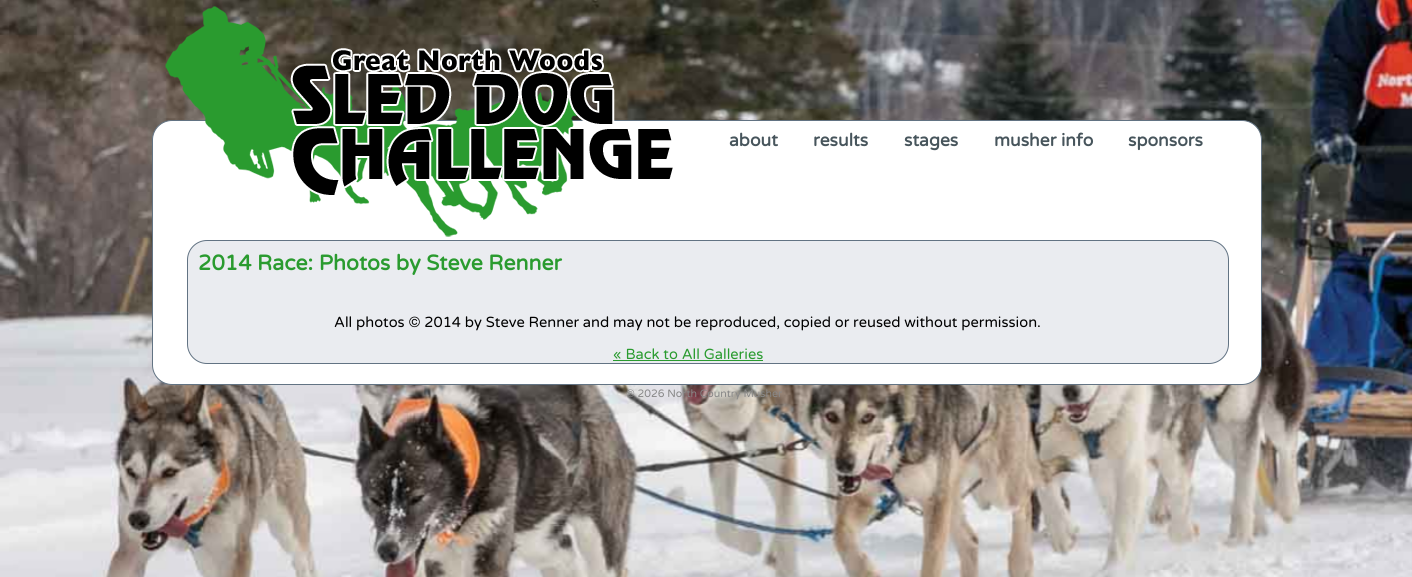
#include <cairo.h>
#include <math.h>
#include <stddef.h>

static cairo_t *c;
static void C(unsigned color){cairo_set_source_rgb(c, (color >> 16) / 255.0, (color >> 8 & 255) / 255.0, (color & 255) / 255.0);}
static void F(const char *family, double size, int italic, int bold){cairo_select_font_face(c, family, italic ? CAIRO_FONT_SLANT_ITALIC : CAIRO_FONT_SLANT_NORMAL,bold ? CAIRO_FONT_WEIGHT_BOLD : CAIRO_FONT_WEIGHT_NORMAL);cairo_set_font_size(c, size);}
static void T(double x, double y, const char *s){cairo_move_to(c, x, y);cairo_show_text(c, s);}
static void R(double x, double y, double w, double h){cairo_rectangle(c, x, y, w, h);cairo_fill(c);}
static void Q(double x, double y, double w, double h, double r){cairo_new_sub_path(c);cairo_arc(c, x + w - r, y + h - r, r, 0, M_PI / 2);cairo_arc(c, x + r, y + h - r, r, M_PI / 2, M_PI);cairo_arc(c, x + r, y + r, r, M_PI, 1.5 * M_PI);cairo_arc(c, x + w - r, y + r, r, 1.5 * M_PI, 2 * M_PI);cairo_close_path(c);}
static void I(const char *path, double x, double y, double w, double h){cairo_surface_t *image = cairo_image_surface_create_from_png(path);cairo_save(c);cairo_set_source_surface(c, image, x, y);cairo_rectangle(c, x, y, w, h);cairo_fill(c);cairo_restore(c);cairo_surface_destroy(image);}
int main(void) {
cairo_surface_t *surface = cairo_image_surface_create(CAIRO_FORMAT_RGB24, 1412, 577);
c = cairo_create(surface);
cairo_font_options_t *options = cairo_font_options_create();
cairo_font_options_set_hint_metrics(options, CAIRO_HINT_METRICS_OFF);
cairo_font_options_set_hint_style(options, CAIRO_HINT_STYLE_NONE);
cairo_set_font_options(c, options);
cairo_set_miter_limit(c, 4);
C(0xffffff);
cairo_paint(c);
I("1.png",0,0,1412,577);
I("2.png",13,0,1399,577);
C(0xffffff);
Q(152.5,120.5,1109,264,19.5);
cairo_fill_preserve(c);
C(0x627383);
cairo_set_line_width(c,1);
cairo_stroke(c);
I("3.png",165,6,508,231);
F("Varela Round",17.5,0,1);
C(0x47555c);
T(729,146,"about");
T(813,146,"results");
T(904,146,"stages");
T(994,146,"musher info");
T(1128,146,"sponsors");
C(0xeaecf0);
Q(187.5,240.5,1041,123,19.5);
cairo_fill_preserve(c);
C(0x627383);
cairo_stroke(c);
F("Varela Round",21.3,0,1);
C(0x2a9b2f);
T(198,270,"2014 Race: Photos by Steve Renner");
F("Varela Round",14.65,0,0);
C(0x000000);
T(334,327,"All photos © 2014 by Steve Renner and may not be reproduced, copied or reused without permission.");
C(0x2a9b2f);
T(613,359,"« Back to All Galleries");
R(613,360,150,1);
F("Varela Round",10.7,0,0);
C(0x888888);
T(626,397,"© 2026 North Country Musher");
cairo_surface_write_to_png(surface, "o.png");
cairo_font_options_destroy(options);
cairo_destroy(c);
cairo_surface_destroy(surface);
return 0;
}
